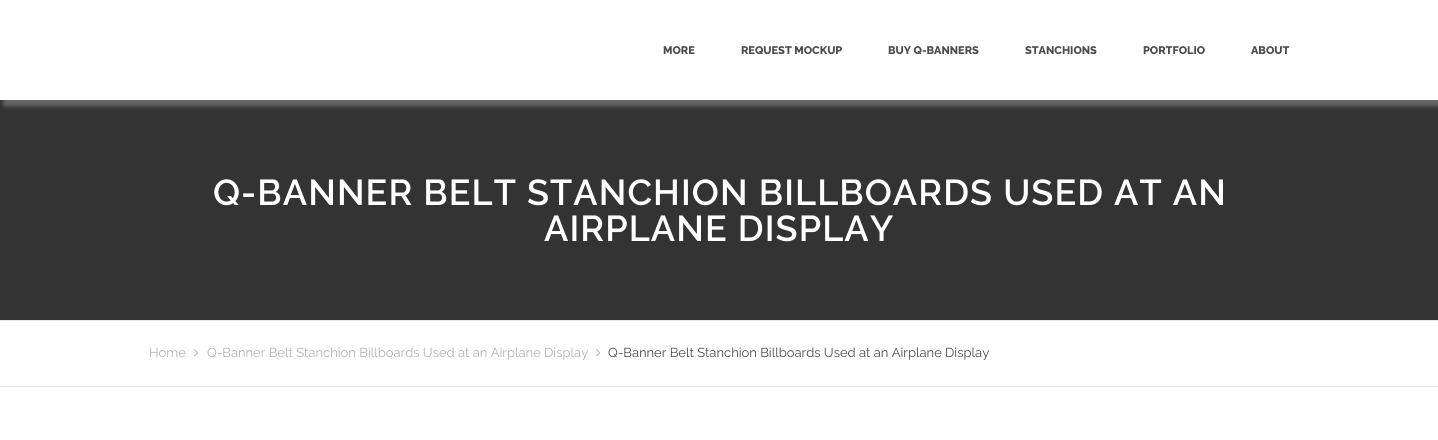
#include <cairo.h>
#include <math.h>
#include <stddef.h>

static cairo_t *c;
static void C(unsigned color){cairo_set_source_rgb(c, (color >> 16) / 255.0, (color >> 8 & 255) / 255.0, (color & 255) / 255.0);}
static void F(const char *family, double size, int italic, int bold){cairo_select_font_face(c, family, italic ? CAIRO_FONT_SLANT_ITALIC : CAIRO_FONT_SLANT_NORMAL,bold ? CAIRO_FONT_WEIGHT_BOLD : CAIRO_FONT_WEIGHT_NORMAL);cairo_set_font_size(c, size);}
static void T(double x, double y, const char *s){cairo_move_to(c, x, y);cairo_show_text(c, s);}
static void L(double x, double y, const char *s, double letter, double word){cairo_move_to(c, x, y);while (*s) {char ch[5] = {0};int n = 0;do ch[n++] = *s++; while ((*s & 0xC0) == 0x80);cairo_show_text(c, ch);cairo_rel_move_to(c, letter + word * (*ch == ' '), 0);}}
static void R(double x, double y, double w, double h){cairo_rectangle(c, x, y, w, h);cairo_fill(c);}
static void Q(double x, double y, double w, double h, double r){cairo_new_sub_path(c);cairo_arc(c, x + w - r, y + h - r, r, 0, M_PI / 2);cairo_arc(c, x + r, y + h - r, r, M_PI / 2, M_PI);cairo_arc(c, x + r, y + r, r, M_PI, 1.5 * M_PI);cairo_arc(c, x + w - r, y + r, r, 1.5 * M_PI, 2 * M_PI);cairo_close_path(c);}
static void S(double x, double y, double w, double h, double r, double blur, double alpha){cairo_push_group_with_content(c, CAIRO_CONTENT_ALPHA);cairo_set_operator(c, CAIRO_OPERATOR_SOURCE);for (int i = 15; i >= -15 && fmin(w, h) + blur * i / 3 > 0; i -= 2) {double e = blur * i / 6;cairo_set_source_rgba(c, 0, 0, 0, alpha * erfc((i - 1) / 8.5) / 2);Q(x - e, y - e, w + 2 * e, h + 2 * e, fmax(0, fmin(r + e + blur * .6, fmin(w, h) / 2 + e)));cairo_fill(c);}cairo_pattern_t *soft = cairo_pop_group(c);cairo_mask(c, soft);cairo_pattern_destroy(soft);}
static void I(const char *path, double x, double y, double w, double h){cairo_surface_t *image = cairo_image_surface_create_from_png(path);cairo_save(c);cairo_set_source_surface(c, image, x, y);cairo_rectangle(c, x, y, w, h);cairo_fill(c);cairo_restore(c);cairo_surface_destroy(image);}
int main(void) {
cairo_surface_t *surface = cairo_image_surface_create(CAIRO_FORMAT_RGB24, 1438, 440);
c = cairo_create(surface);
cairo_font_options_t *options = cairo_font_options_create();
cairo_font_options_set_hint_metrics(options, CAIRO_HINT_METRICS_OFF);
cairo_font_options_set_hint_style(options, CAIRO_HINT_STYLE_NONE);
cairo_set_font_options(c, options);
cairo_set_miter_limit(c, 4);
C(0x333333);
cairo_paint(c);
C(0x666666);
S(5,5,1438,100,0,2.5,1);
S(5,5,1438,100,0,2.5,1);
C(0xffffff);
R(0,0,1438,100);
F("Raleway ExtraBold",11,0,0);
C(0x4c4c4c);
T(663,54,"MORE");
T(741,54,"REQUEST MOCKUP");
T(888,54,"BUY Q-BANNERS");
T(1025,54,"STANCHIONS");
T(1143,54,"PORTFOLIO");
T(1251,54,"ABOUT");
C(0xe9e9e9);
R(0,320,1438,1);
F("Raleway SemiBold",36,0,0);
C(0xffffff);
L(213,205,"Q-BANNER BELT STANCHION BILLBOARDS USED AT AN",1.1,0);
L(544,241,"AIRPLANE DISPLAY",1.1,0);
R(0,321,1438,65);
C(0xe6e6e6);
R(0,386,1438,1);
F("Raleway",13,0,0);
C(0xb2b2b2);
T(149,357,"Home");
I("1.png",194,349,5,8);
T(207,357,"Q-Banner Belt Stanchion Billboards Used at an Airplane Display");
I("1.png",596,349,5,8);
C(0x4c4c4c);
T(608,357,"Q-Banner Belt Stanchion Billboards Used at an Airplane Display");
C(0xffffff);
R(0,387,1438,53);
cairo_surface_write_to_png(surface, "o.png");
cairo_font_options_destroy(options);
cairo_destroy(c);
cairo_surface_destroy(surface);
return 0;
}
